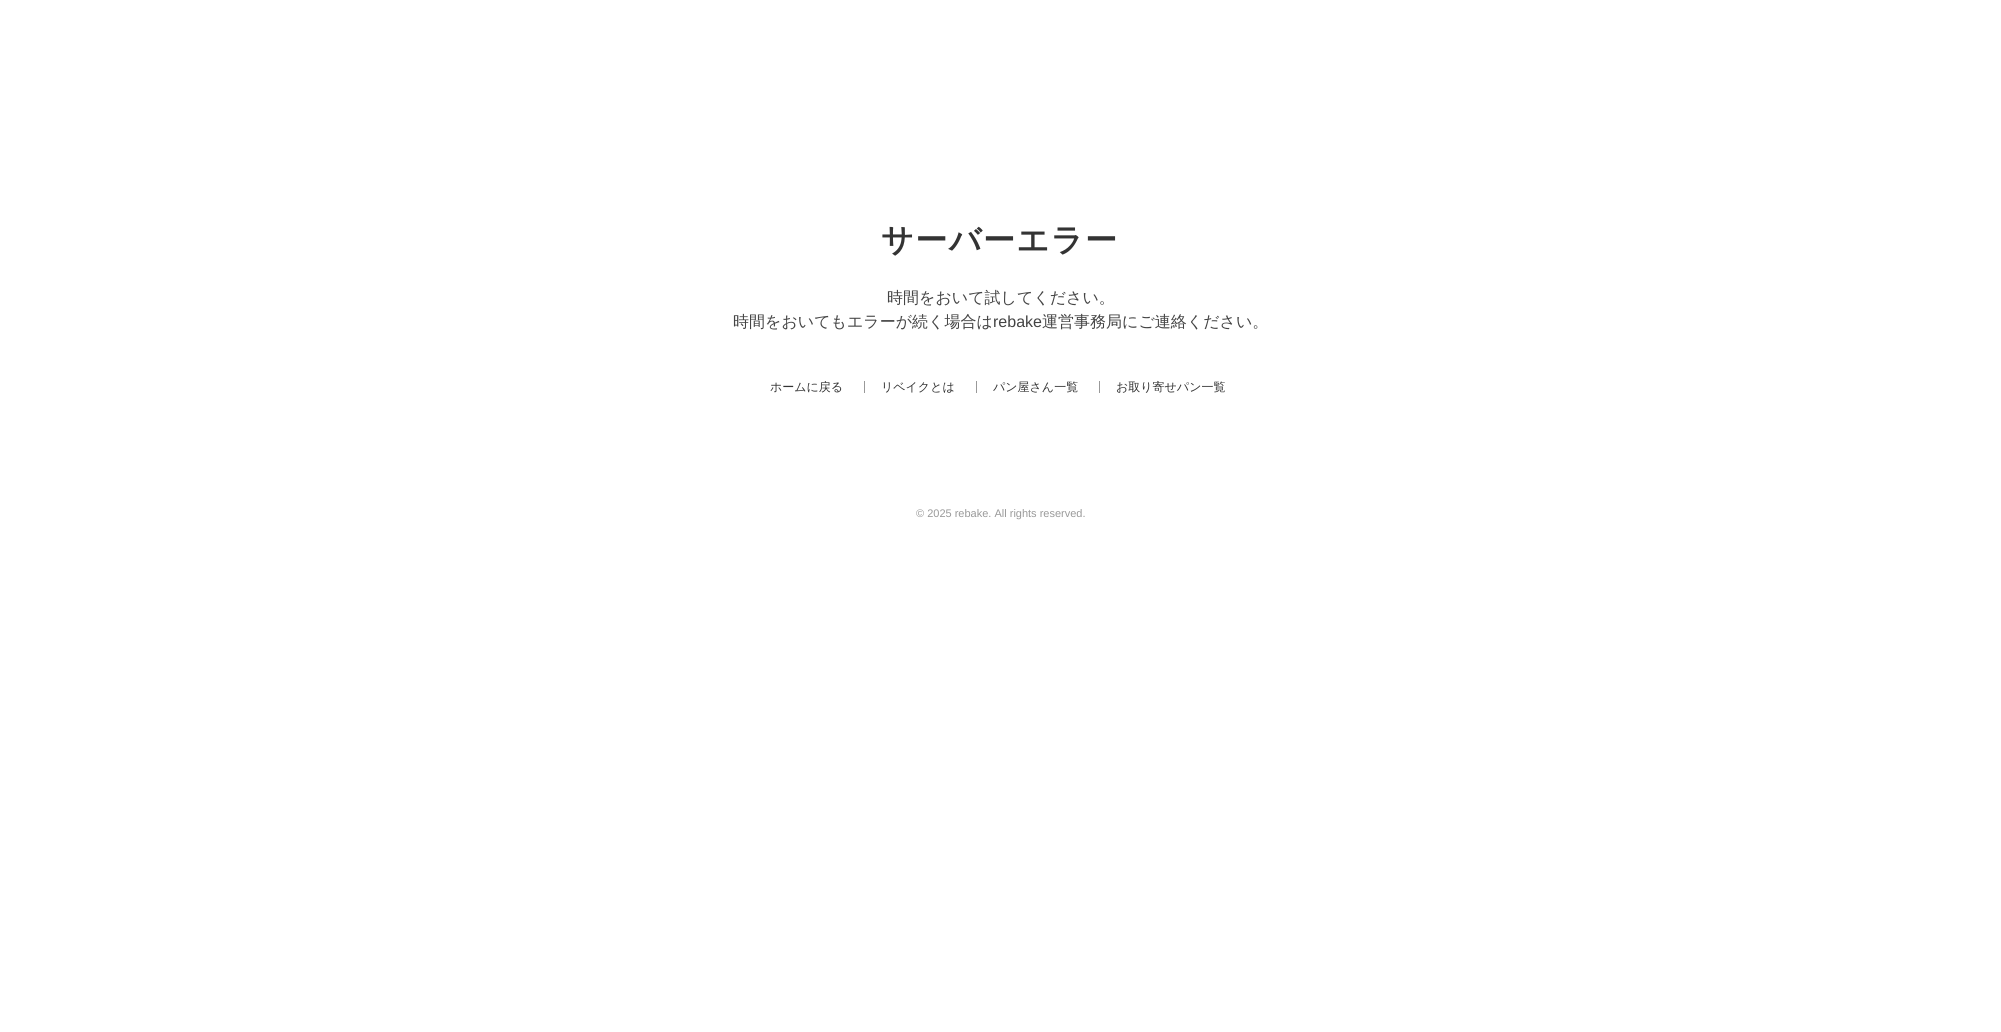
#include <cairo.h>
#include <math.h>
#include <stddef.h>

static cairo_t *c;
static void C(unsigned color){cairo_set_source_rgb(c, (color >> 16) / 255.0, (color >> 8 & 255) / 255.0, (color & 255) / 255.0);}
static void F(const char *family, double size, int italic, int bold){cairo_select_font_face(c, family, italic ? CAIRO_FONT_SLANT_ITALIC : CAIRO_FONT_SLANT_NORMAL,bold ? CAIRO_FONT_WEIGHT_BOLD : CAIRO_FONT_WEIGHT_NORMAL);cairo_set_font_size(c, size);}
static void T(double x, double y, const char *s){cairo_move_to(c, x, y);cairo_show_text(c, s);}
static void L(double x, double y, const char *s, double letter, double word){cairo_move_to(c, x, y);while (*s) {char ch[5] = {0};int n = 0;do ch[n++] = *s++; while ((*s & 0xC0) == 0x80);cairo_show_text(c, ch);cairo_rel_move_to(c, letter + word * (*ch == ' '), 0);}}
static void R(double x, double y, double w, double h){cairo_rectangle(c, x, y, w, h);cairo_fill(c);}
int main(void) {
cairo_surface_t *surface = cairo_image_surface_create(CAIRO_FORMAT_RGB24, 2001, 1032);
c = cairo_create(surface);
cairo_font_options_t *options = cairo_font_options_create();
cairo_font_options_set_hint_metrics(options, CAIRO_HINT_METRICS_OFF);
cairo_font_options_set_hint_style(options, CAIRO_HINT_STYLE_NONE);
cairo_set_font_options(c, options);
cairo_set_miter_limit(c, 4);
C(0xffffff);
cairo_paint(c);
F("WenQuanYi Zen Hei",32,0,1);
C(0x333333);
L(881,251,"サーバーエラー",1.5,0);
F("WenQuanYi Zen Hei Medium",16,0,0);
C(0x444444);
T(887,303,"時間をおいて試してください。");
T(733,327,"時間をおいてもエラーが続く場合は");
F("Liberation Sans",16,0,0);
T(993,327,"rebake");
F("WenQuanYi Zen Hei Medium",16,0,0);
T(1042,327,"運営事務局にご連絡ください。");
C(0x999999);
R(864,381,1,12);
F("WenQuanYi Zen Hei Medium",12,0,0);
C(0x333333);
T(770,391,"ホームに戻る");
C(0x999999);
R(976,381,1,12);
C(0x333333);
T(881,391,"リベイクとは");
C(0x999999);
R(1099,381,1,12);
C(0x333333);
T(993,391,"パン屋さん一覧");
T(1116,391,"お取り寄せパン一覧");
F("Liberation Sans",11,0,0);
C(0x999999);
T(916,517,"© 2025 rebake. All rights reserved.");
cairo_surface_write_to_png(surface, "o.png");
cairo_font_options_destroy(options);
cairo_destroy(c);
cairo_surface_destroy(surface);
return 0;
}
